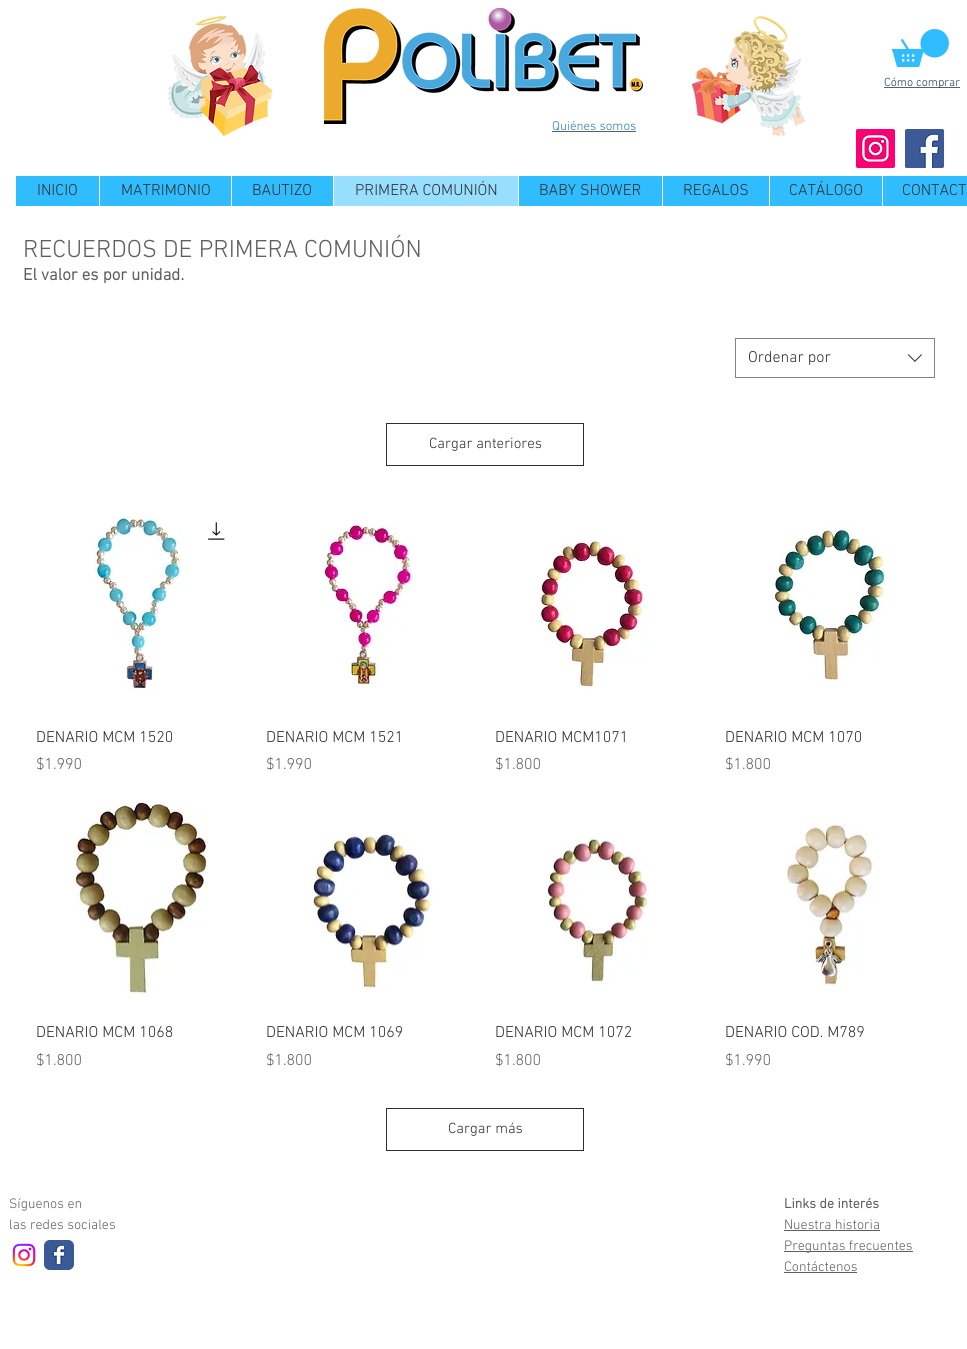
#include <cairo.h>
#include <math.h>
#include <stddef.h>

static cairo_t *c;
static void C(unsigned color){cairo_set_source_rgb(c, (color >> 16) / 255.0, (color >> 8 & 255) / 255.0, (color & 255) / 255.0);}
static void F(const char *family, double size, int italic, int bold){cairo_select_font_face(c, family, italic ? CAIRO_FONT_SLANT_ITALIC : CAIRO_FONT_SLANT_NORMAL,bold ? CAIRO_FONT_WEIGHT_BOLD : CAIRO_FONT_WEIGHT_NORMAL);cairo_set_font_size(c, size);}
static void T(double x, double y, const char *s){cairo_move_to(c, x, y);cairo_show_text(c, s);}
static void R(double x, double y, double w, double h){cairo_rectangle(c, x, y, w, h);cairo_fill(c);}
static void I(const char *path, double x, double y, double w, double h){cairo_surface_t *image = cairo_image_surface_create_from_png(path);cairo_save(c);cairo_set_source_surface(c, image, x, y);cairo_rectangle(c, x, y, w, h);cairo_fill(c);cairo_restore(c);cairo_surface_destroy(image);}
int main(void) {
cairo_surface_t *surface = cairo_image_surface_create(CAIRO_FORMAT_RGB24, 967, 1349);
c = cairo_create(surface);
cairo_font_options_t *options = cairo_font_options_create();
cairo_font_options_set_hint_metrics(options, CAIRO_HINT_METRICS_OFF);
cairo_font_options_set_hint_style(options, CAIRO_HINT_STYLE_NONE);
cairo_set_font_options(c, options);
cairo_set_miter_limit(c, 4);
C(0xffffff);
cairo_paint(c);
I("1.png",168,16,104,120);
I("2.png",324,8,319,116);
I("3.png",692,16,113,120);
I("4.png",892,29,57,38);
C(0x605e5e);
R(884,87,76,1);
F("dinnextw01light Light",12,0,0);
C(0x103f54);
T(884,86,"Cómo comprar");
F("dinnextw01light Light",13,0,0);
C(0x207ea9);
T(552,130,"Quiénes somos");
C(0x605e5e);
R(552,131,84,1);
I("5.png",856,129,39,39);
I("6.png",905,129,39,39);
C(0x30bdff);
R(16,176,951,30);
F("dinnextw01light Light",16,0,0);
C(0x2f2e2e);
T(37,195,"INICIO");
C(0xffffff);
R(99,176,1,30);
C(0x2f2e2e);
T(121,195,"MATRIMONIO");
C(0xffffff);
R(231,176,1,30);
C(0x2f2e2e);
T(252,195,"BAUTIZO");
C(0x97deff);
R(334,176,184,30);
C(0xffffff);
R(333,176,1,30);
C(0x2f2e2e);
T(355,195,"PRIMERA COMUNIÓN");
C(0xffffff);
R(518,176,1,30);
C(0x2f2e2e);
T(539,195,"BABY SHOWER");
C(0xffffff);
R(662,176,1,30);
C(0x2f2e2e);
T(683,195,"REGALOS");
C(0xffffff);
R(769,176,1,30);
C(0x2f2e2e);
T(789,195,"CATÁLOGO");
C(0xffffff);
R(882,176,1,30);
C(0x2f2e2e);
T(902,195,"CONTACT");
F("dinnextw01light Light",25,0,0);
C(0x605e5e);
T(23,257,"RECUERDOS DE PRIMERA COMUNIÓN");
F("dinnextw01light",17,0,1);
T(23,280,"El valor es por unidad.");
cairo_rectangle(c,735.5,338.5,199,39);
C(0x828282);
cairo_set_line_width(c,1);
cairo_stroke(c);
F("dinnextw01light Light",16,0,0);
C(0x2f2e2e);
T(748,362,"Ordenar por");
I("7.png",907,354,15,8);
cairo_rectangle(c,386.5,423.5,197,42);
cairo_stroke(c);
F("dinnextw01light Light",15,0,0);
T(429,448,"Cargar anteriores");
I("8.png",94,516,88,177);
I("9.png",208,522,17,18);
F("dinnextw01light Light",16,0,0);
T(36,742,"DENARIO MCM 1520");
C(0x605e5e);
T(36,769,"$1.990");
I("10.png",323,524,89,162);
C(0x2f2e2e);
T(266,742,"DENARIO MCM 1521");
C(0x605e5e);
T(266,769,"$1.990");
I("11.png",537,540,112,149);
C(0x2f2e2e);
T(495,742,"DENARIO MCM1071");
C(0x605e5e);
T(495,769,"$1.800");
I("12.png",774,525,112,160);
C(0x2f2e2e);
T(725,742,"DENARIO MCM 1070");
C(0x605e5e);
T(725,769,"$1.800");
I("13.png",72,801,136,195);
C(0x2f2e2e);
T(36,1037,"DENARIO MCM 1068");
C(0x605e5e);
T(36,1065,"$1.800");
I("14.png",311,832,123,157);
C(0x2f2e2e);
T(266,1037,"DENARIO MCM 1069");
C(0x605e5e);
T(266,1065,"$1.800");
I("15.png",545,836,104,148);
C(0x2f2e2e);
T(495,1037,"DENARIO MCM 1072");
C(0x605e5e);
T(495,1065,"$1.800");
I("16.png",786,824,88,161);
C(0x2f2e2e);
T(725,1037,"DENARIO COD. M789");
C(0x605e5e);
T(725,1065,"$1.990");
cairo_rectangle(c,386.5,1108.5,197,42);
C(0x2f2e2e);
cairo_stroke(c);
F("dinnextw01light Light",15,0,0);
T(448,1133,"Cargar más");
F("dinnextw01light Light",14,0,0);
C(0x605e5e);
T(9,1208,"Síguenos en");
T(9,1229,"las redes sociales");
F("dinnextw01light",14,0,1);
T(784,1208,"Links de interés");
F("dinnextw01light Light",14,0,0);
T(784,1229,"Nuestra historia");
R(784,1230,96,1);
R(784,1251,129,1);
T(784,1250,"Preguntas frecuentes");
T(784,1271,"Contáctenos");
R(784,1272,73,1);
I("17.png",12,1243,24,24);
I("18.png",44,1240,30,30);
cairo_surface_write_to_png(surface, "o.png");
cairo_font_options_destroy(options);
cairo_destroy(c);
cairo_surface_destroy(surface);
return 0;
}
